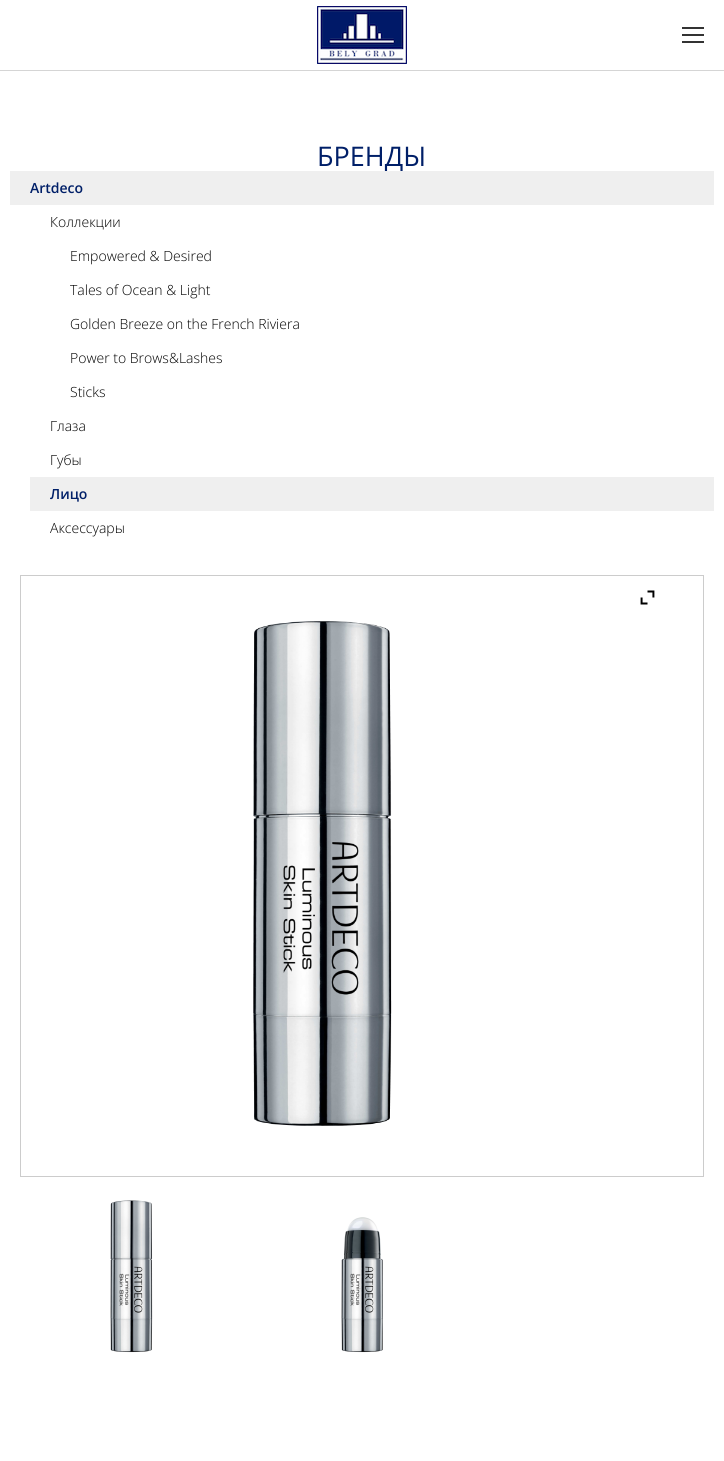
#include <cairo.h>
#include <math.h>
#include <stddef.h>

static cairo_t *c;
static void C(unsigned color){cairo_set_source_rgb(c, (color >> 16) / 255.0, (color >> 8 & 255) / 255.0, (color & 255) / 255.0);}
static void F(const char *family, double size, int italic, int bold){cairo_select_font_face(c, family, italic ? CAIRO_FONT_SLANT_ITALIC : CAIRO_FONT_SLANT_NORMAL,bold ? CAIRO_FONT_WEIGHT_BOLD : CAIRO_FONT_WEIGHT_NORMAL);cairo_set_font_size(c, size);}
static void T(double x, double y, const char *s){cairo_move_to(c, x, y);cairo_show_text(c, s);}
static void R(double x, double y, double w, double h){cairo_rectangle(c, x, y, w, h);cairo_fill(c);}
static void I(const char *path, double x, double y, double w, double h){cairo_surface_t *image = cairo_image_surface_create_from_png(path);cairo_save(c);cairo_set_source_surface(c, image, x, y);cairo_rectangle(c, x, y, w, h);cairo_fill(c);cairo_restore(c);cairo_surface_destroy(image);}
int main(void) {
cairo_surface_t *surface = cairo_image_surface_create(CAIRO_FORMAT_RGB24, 724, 1461);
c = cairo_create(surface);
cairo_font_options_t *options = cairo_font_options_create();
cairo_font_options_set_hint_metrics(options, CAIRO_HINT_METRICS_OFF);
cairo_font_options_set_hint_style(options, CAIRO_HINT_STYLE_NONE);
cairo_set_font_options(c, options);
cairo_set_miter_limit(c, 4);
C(0xffffff);
cairo_paint(c);
C(0xd5d5d5);
R(0,70,724,1);
I("1.png",317,6,90,58);
C(0x333333);
R(682,34,22,2);
R(682,27,22,2);
R(682,41,22,2);
F("Open Sans",27,0,0);
C(0x001f68);
T(317,166,"БРЕНДЫ");
C(0xefefef);
R(10,171,704,34);
F("Open Sans SemiBold",14,0,0);
C(0x001f68);
T(30,193,"Artdeco");
F("Open Sans Light",14,0,0);
C(0x000000);
T(50,227,"Коллекции");
T(70,261,"Empowered & Desired");
T(70,295,"Tales of Ocean & Light");
T(70,329,"Golden Breeze on the French Riviera");
T(70,363,"Power to Brows&Lashes");
T(70,397,"Sticks");
T(50,431,"Глаза");
T(50,465,"Губы");
C(0xefefef);
R(30,477,684,34);
F("Open Sans SemiBold",14,0,0);
C(0x001f68);
T(50,499,"Лицо");
F("Open Sans Light",14,0,0);
C(0x000000);
T(50,533,"Аксессуары");
cairo_rectangle(c,20.5,575.5,683,601);
C(0xcccccc);
cairo_set_line_width(c,1);
cairo_stroke(c);
I("2.png",253,621,139,505);
I("3.png",640,590,15,15);
I("4.png",110,1200,43,153);
I("5.png",341,1217,42,136);
cairo_surface_write_to_png(surface, "o.png");
cairo_font_options_destroy(options);
cairo_destroy(c);
cairo_surface_destroy(surface);
return 0;
}
